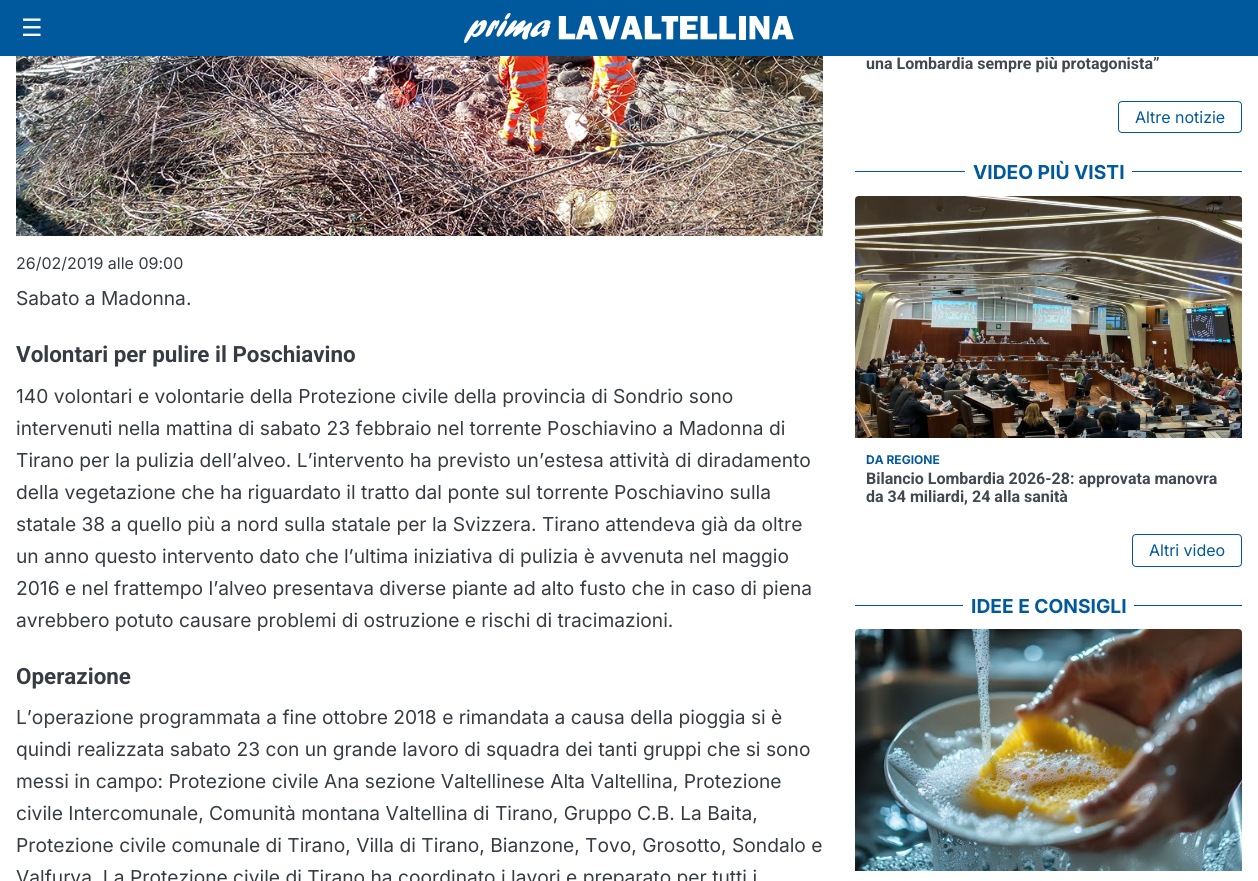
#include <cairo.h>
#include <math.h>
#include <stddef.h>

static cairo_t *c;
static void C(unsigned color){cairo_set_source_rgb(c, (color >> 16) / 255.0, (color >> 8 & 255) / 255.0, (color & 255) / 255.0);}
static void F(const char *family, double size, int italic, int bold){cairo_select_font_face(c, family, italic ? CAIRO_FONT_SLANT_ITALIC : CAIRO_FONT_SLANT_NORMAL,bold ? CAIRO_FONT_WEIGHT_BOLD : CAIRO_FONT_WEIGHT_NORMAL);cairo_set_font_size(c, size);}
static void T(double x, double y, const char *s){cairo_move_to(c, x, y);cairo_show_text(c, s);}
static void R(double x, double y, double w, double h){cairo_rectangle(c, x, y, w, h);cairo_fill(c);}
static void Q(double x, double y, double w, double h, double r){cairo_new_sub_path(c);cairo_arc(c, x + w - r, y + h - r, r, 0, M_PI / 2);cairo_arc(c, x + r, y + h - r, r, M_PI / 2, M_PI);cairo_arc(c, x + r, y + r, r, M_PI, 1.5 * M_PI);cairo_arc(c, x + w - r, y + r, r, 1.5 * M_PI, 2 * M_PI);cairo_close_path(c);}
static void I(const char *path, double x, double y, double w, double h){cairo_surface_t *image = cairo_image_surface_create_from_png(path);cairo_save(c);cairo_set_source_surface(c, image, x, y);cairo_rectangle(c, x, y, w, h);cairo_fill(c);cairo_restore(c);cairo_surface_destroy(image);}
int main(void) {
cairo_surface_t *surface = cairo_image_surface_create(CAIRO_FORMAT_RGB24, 1258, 881);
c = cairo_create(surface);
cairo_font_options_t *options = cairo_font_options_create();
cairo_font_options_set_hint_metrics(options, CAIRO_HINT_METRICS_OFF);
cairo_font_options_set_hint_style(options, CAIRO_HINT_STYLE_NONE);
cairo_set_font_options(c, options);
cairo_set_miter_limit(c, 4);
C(0xffffff);
cairo_paint(c);
C(0x00599c);
R(0,0,1258,56);
F("DejaVu Sans",24,0,0);
C(0xffffff);
T(21,36,"☰");
I("1.png",464,13,330,30);
I("2.png",16,56,807,180);
F("Inter",16,0,0);
C(0x373c44);
T(16,269,"26/02/2019 alle 09:00");
F("Inter",19.2,0,0);
T(16,305,"Sabato a Madonna.");
F("Roboto",22.4,0,1);
T(16,362,"Volontari per pulire il Poschiavino");
F("Inter",19.2,0,0);
T(16,403,"140 volontari e volontarie della Protezione civile della provincia di Sondrio sono");
T(16,435,"intervenuti nella mattina di sabato 23 febbraio nel torrente Poschiavino a Madonna di");
T(16,467,"Tirano per la pulizia dell’alveo. L’intervento ha previsto un’estesa attività di diradamento");
T(16,499,"della vegetazione che ha riguardato il tratto dal ponte sul torrente Poschiavino sulla");
T(16,531,"statale 38 a quello più a nord sulla statale per la Svizzera. Tirano attendeva già da oltre");
T(16,563,"un anno questo intervento dato che l’ultima iniziativa di pulizia è avvenuta nel maggio");
T(16,595,"2016 e nel frattempo l’alveo presentava diverse piante ad alto fusto che in caso di piena");
T(16,627,"avrebbero potuto causare problemi di ostruzione e rischi di tracimazioni.");
F("Roboto",22.4,0,1);
T(16,684,"Operazione");
F("Inter",19.2,0,0);
T(16,724,"L’operazione programmata a fine ottobre 2018 e rimandata a causa della pioggia si è");
T(16,756,"quindi realizzata sabato 23 con un grande lavoro di squadra dei tanti gruppi che si sono");
T(16,788,"messi in campo: Protezione civile Ana sezione Valtellinese Alta Valtellina, Protezione");
T(16,820,"civile Intercomunale, Comunità montana Valtellina di Tirano, Gruppo C.B. La Baita,");
T(16,852,"Protezione civile comunale di Tirano, Villa di Tirano, Bianzone, Tovo, Grosotto, Sondalo e");
T(16,884,"Valfurva. La Protezione civile di Tirano ha coordinato i lavori e preparato per tutti i");
F("Roboto",16,0,1);
C(0x424751);
T(866,69,"una Lombardia sempre più protagonista”");
Q(1118.5,101.5,123,31,3.5);
C(0x00599c);
cairo_set_line_width(c,1);
cairo_stroke(c);
F("Inter",16,0,0);
T(1135,123,"Altre notizie");
R(855,171,387,1);
C(0xffffff);
R(965,171,167,1);
F("Inter",19.2,0,1);
C(0x00599c);
T(973,179,"VIDEO PIÙ VISTI");
I("3.png",855,196,387,242);
F("Inter",12,0,1);
T(866,464,"DA REGIONE");
F("Roboto",16,0,1);
C(0x424751);
T(866,484,"Bilancio Lombardia 2026-28: approvata manovra");
T(866,502,"da 34 miliardi, 24 alla sanità");
Q(1132.5,534.5,109,32,3.5);
C(0x00599c);
cairo_stroke(c);
F("Inter",16,0,0);
T(1149,556,"Altri video");
R(855,605,387,1);
C(0xffffff);
R(963,605,171,1);
F("Inter",19.2,0,1);
C(0x00599c);
T(971,613,"IDEE E CONSIGLI");
I("4.png",855,629,387,242);
cairo_surface_write_to_png(surface, "o.png");
cairo_font_options_destroy(options);
cairo_destroy(c);
cairo_surface_destroy(surface);
return 0;
}
